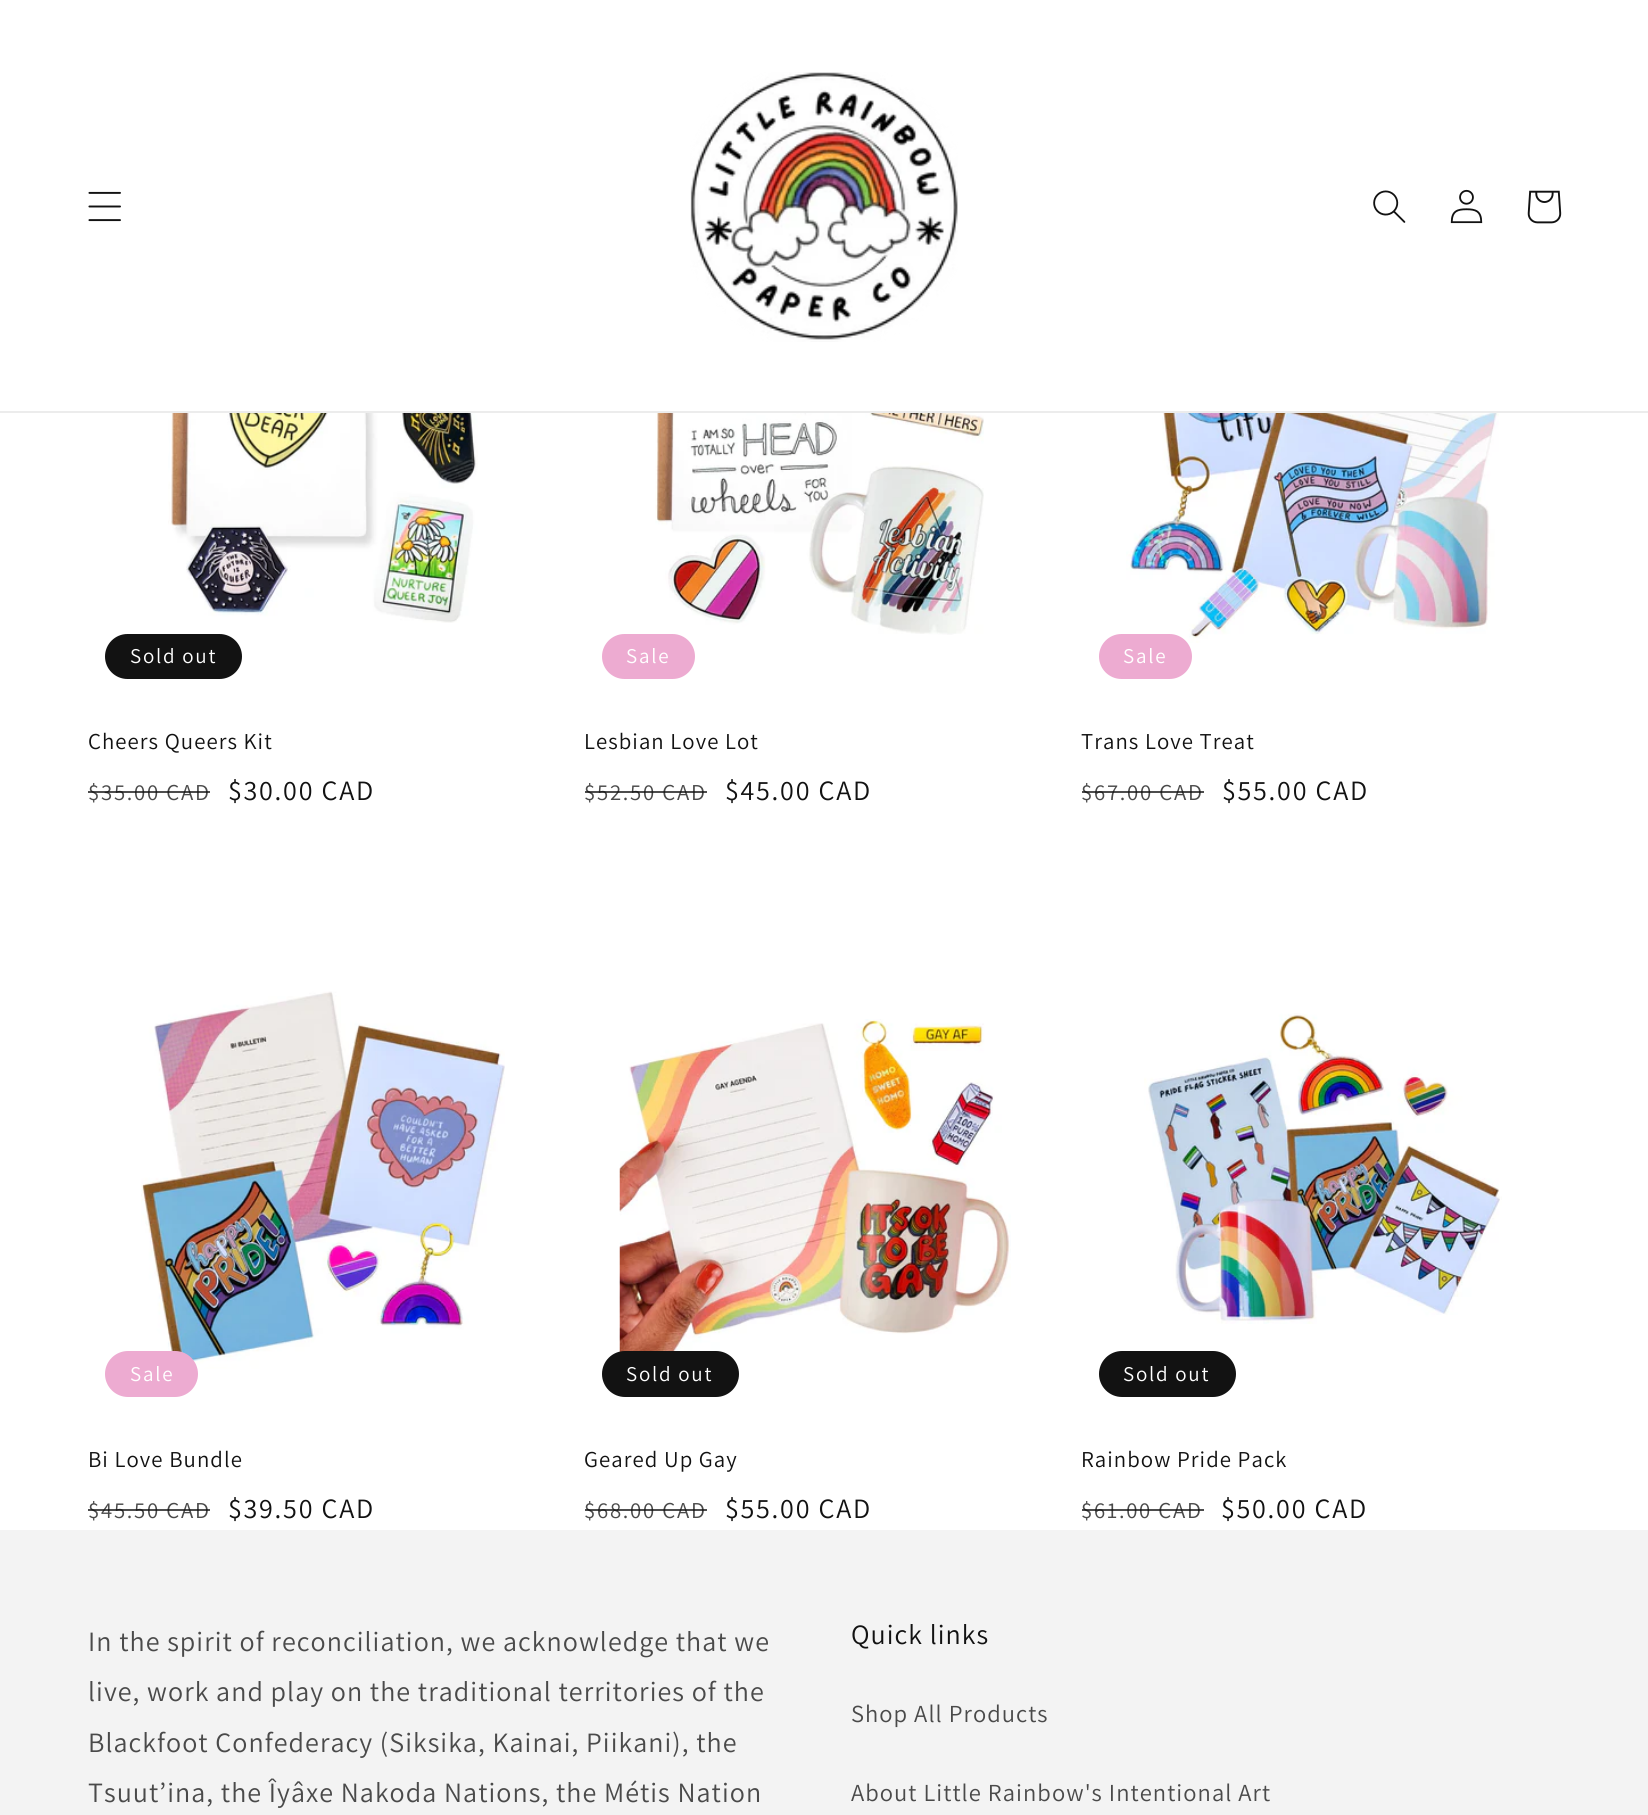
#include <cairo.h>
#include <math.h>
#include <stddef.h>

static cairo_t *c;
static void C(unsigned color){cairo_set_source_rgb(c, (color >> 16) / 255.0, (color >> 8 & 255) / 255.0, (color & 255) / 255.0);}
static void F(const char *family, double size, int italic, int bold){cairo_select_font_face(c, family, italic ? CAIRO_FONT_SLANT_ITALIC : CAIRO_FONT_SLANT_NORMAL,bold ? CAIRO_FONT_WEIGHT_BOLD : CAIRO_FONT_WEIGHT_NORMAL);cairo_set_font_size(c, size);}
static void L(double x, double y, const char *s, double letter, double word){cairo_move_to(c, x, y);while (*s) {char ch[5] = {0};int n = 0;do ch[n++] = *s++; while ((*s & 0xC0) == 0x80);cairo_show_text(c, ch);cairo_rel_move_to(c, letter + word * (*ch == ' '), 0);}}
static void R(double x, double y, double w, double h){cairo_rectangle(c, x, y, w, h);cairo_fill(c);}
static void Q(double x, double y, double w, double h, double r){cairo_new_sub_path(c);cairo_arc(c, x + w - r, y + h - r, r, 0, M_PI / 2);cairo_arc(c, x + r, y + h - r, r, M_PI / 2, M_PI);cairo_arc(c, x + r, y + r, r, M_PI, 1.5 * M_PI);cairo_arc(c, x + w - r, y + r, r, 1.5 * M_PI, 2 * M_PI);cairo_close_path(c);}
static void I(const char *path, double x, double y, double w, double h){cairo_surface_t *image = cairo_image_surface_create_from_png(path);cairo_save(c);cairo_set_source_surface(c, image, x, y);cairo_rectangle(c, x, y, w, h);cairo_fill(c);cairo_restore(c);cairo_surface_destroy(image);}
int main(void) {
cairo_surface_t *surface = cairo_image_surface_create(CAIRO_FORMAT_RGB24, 1648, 1815);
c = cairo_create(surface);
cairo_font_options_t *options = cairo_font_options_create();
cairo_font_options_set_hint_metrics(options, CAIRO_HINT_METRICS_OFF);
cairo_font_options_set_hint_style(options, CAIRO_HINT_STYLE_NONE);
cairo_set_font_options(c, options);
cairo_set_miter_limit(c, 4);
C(0xffffff);
cairo_paint(c);
C(0xececec);
R(0,411,1648,2);
I("1.png",88,191,33,31);
I("2.png",690,72,268,270);
I("3.png",1373,190,33,33);
I("4.png",1450,189,33,35);
I("5.png",1527,190,35,34);
I("6.png",168,413,310,210);
C(0x121212);
Q(106,635,135,43,21.5);
cairo_fill_preserve(c);
cairo_stroke(c);
F("Assistant",21,0,0);
C(0xffffff);
L(130,663,"Sold out",1.75,0);
F("Assistant",22.75,0,0);
C(0x121212);
L(88,749,"Cheers Queers Kit",1.05,0);
C(0x4a4a4a);
L(88,800,"$35.00 CAD",1.75,0);
cairo_set_source_rgba(c,0.071,0.071,0.071,0.75);
R(88,791,122,2);
F("Assistant",28,0,0);
C(0x121212);
L(228,800,"$30.00 CAD",1.75,0);
I("7.png",655,413,329,222);
C(0xedabd1);
Q(603,635,91,43,21.5);
cairo_fill_preserve(c);
cairo_stroke(c);
F("Assistant",21,0,0);
C(0xffffff);
L(626,663,"Sale",1.75,0);
F("Assistant",22.75,0,0);
C(0x121212);
L(584,749,"Lesbian Love Lot",1.05,0);
C(0x4a4a4a);
L(584,800,"$52.50 CAD",1.75,0);
cairo_set_source_rgba(c,0.071,0.071,0.071,0.75);
R(585,791,122,2);
F("Assistant",28,0,0);
C(0x121212);
L(725,800,"$45.00 CAD",1.75,0);
I("8.png",1126,413,390,230);
C(0xedabd1);
Q(1100,635,91,43,21.5);
cairo_fill_preserve(c);
cairo_stroke(c);
F("Assistant",21,0,0);
C(0xffffff);
L(1123,663,"Sale",1.75,0);
F("Assistant",22.75,0,0);
C(0x121212);
L(1081,749,"Trans Love Treat",1.05,0);
C(0x4a4a4a);
L(1081,800,"$67.00 CAD",1.75,0);
cairo_set_source_rgba(c,0.071,0.071,0.071,0.75);
R(1082,791,122,2);
F("Assistant",28,0,0);
C(0x121212);
L(1222,800,"$55.00 CAD",1.75,0);
I("9.png",141,991,364,378);
C(0xedabd1);
Q(106,1352,91,44,22);
cairo_fill_preserve(c);
cairo_stroke(c);
F("Assistant",21,0,0);
C(0xffffff);
L(130,1381,"Sale",1.75,0);
F("Assistant",22.75,0,0);
C(0x121212);
L(88,1467,"Bi Love Bundle",1.05,0);
C(0x4a4a4a);
L(88,1518,"$45.50 CAD",1.75,0);
cairo_set_source_rgba(c,0.071,0.071,0.071,0.75);
R(88,1509,122,2);
F("Assistant",28,0,0);
C(0x121212);
L(228,1518,"$39.50 CAD",1.75,0);
I("10.png",619,1019,392,360);
Q(603,1352,135,44,22);
cairo_fill_preserve(c);
cairo_stroke(c);
F("Assistant",21,0,0);
C(0xffffff);
L(626,1381,"Sold out",1.75,0);
F("Assistant",22.75,0,0);
C(0x121212);
L(584,1467,"Geared Up Gay",1.05,0);
C(0x4a4a4a);
L(584,1518,"$68.00 CAD",1.75,0);
cairo_set_source_rgba(c,0.071,0.071,0.071,0.75);
R(585,1509,122,2);
F("Assistant",28,0,0);
C(0x121212);
L(725,1518,"$55.00 CAD",1.75,0);
I("11.png",1144,1013,358,311);
Q(1100,1352,135,44,22);
cairo_fill_preserve(c);
cairo_stroke(c);
F("Assistant",21,0,0);
C(0xffffff);
L(1123,1381,"Sold out",1.75,0);
F("Assistant",22.75,0,0);
C(0x121212);
L(1081,1467,"Rainbow Pride Pack",1.05,0);
C(0x4a4a4a);
L(1081,1518,"$61.00 CAD",1.75,0);
cairo_set_source_rgba(c,0.071,0.071,0.071,0.75);
R(1082,1509,122,2);
F("Assistant",28,0,0);
C(0x121212);
L(1221,1518,"$50.00 CAD",1.75,0);
C(0xf3f3f3);
R(0,1530,1648,285);
C(0x4a4a4a);
L(88,1651,"In the spirit of reconciliation, we acknowledge that we",1.05,0);
L(88,1701,"live, work and play on the traditional territories of the",1.05,0);
L(88,1752,"Blackfoot Confederacy (Siksika, Kainai, Piikani), the",1.05,0);
L(88,1802,"Tsuut’ina, the Îyâxe Nakoda Nations, the Métis Nation",1.05,0);
C(0x121212);
L(851,1644,"Quick links",1.05,0);
F("Assistant",24.5,0,0);
C(0x4a4a4a);
L(851,1722,"Shop All Products",1.05,0);
L(851,1801,"About Little Rainbow's Intentional Art",1.05,0);
cairo_surface_write_to_png(surface, "o.png");
cairo_font_options_destroy(options);
cairo_destroy(c);
cairo_surface_destroy(surface);
return 0;
}
